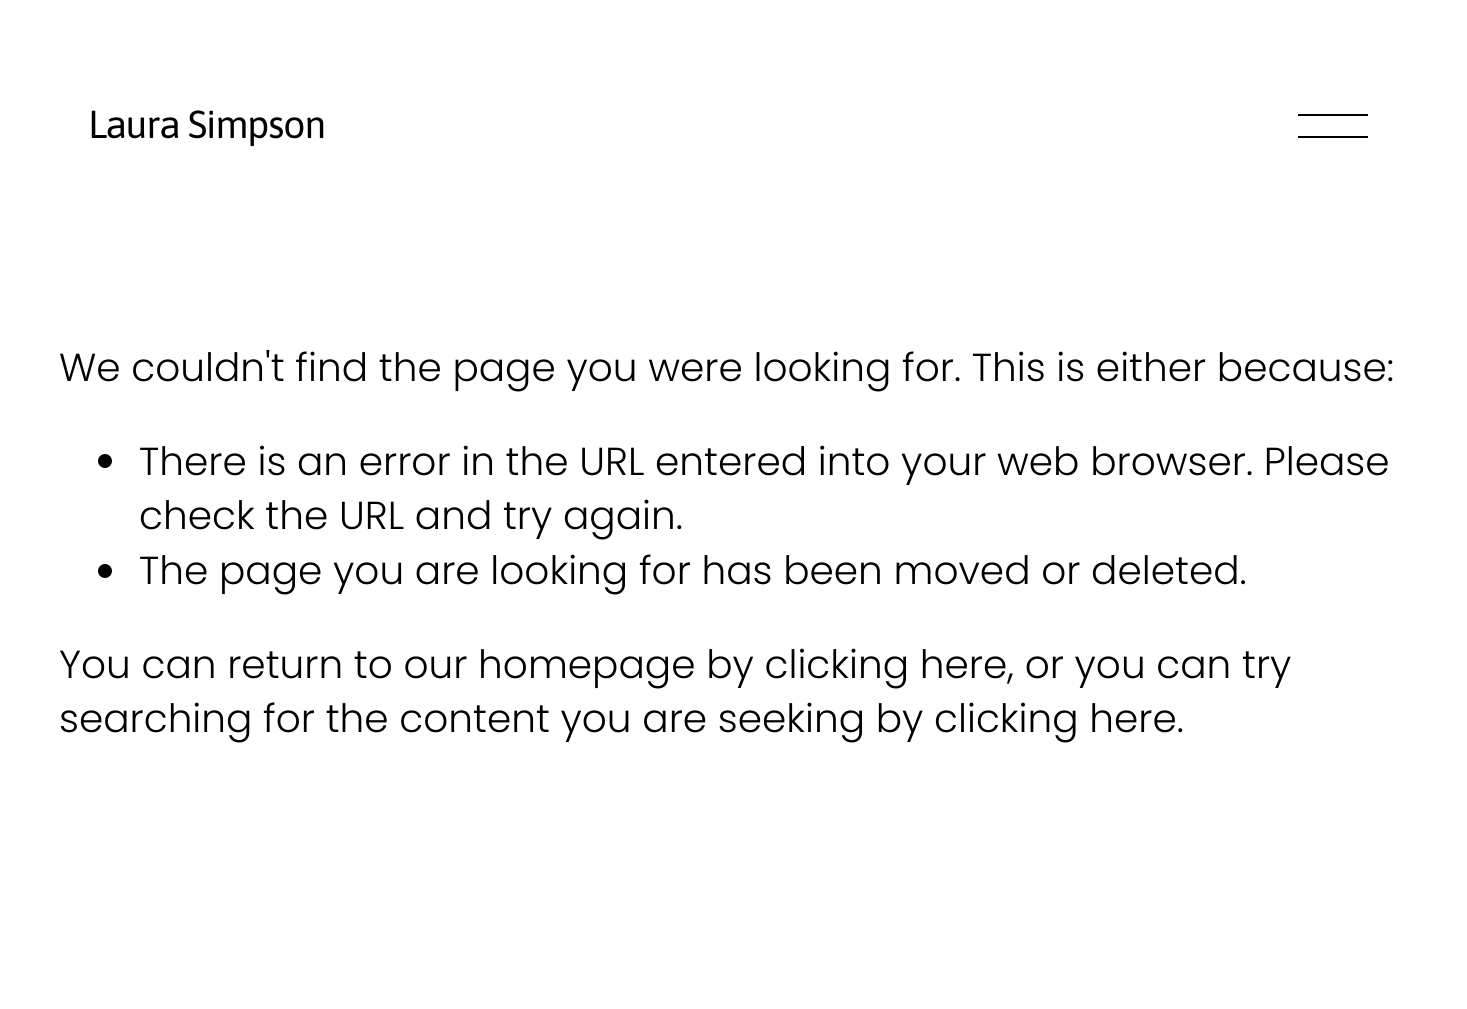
#include <cairo.h>
#include <math.h>
#include <stddef.h>

static cairo_t *c;
static void C(unsigned color){cairo_set_source_rgb(c, (color >> 16) / 255.0, (color >> 8 & 255) / 255.0, (color & 255) / 255.0);}
static void F(const char *family, double size, int italic, int bold){cairo_select_font_face(c, family, italic ? CAIRO_FONT_SLANT_ITALIC : CAIRO_FONT_SLANT_NORMAL,bold ? CAIRO_FONT_WEIGHT_BOLD : CAIRO_FONT_WEIGHT_NORMAL);cairo_set_font_size(c, size);}
static void T(double x, double y, const char *s){cairo_move_to(c, x, y);cairo_show_text(c, s);}
static void L(double x, double y, const char *s, double letter, double word){cairo_move_to(c, x, y);while (*s) {char ch[5] = {0};int n = 0;do ch[n++] = *s++; while ((*s & 0xC0) == 0x80);cairo_show_text(c, ch);cairo_rel_move_to(c, letter + word * (*ch == ' '), 0);}}
static void R(double x, double y, double w, double h){cairo_rectangle(c, x, y, w, h);cairo_fill(c);}
int main(void) {
cairo_surface_t *surface = cairo_image_surface_create(CAIRO_FORMAT_RGB24, 1467, 1009);
c = cairo_create(surface);
cairo_font_options_t *options = cairo_font_options_create();
cairo_font_options_set_hint_metrics(options, CAIRO_HINT_METRICS_OFF);
cairo_font_options_set_hint_style(options, CAIRO_HINT_STYLE_NONE);
cairo_set_font_options(c, options);
cairo_set_miter_limit(c, 4);
C(0xffffff);
cairo_paint(c);
F("Asap",39.05,0,0);
C(0x000000);
L(88,138,"Laura Simpson",-1.2,0);
R(1298,114,70,2);
R(1298,136,70,2);
F("Poppins Light",39.05,0,0);
T(59,381,"We couldn't find the page you were looking for. This is either because:");
cairo_new_path(c);
cairo_arc(c,105,461,7,0,2 * M_PI);
cairo_fill(c);
T(139,475,"There is an error in the URL entered into your web browser. Please");
T(139,529,"check the URL and try again.");
cairo_new_path(c);
cairo_arc(c,105,571,7,0,2 * M_PI);
cairo_fill(c);
T(139,584,"The page you are looking for has been moved or deleted.");
T(59,678,"You can return to our homepage by clicking here, or you can try");
T(59,732,"searching for the content you are seeking by clicking here.");
cairo_surface_write_to_png(surface, "o.png");
cairo_font_options_destroy(options);
cairo_destroy(c);
cairo_surface_destroy(surface);
return 0;
}
